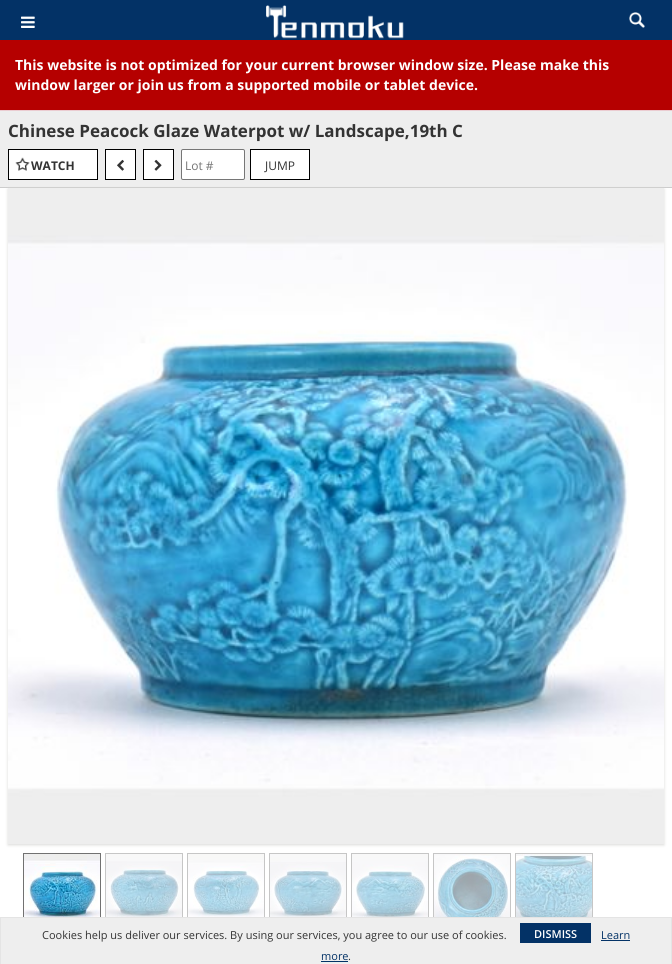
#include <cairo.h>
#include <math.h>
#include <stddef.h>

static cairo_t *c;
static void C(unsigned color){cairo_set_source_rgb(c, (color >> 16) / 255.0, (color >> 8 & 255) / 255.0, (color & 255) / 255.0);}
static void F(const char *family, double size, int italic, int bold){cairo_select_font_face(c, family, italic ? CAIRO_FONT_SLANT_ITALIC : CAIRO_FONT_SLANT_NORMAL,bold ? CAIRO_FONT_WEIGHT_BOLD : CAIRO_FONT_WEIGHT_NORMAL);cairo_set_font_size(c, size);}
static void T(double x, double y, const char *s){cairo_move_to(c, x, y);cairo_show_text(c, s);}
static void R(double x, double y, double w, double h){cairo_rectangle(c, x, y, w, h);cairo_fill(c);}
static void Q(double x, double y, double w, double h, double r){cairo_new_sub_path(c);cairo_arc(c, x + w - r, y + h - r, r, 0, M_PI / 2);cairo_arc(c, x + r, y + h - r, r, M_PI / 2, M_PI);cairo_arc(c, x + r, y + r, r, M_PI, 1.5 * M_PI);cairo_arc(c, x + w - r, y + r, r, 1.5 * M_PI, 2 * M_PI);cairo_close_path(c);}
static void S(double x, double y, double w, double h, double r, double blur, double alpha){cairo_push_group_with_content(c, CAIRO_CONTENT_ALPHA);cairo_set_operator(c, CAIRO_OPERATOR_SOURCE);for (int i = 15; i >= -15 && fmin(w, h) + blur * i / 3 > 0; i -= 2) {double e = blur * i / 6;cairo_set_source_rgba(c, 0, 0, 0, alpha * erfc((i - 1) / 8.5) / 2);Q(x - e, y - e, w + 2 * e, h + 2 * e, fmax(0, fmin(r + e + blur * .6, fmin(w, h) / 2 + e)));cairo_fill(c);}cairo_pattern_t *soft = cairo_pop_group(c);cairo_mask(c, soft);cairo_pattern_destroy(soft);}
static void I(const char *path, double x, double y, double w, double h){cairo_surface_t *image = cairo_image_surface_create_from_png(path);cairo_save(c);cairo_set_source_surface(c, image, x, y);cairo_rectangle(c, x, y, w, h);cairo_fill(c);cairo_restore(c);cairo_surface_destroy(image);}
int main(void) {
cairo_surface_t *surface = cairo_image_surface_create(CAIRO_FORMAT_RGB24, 672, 964);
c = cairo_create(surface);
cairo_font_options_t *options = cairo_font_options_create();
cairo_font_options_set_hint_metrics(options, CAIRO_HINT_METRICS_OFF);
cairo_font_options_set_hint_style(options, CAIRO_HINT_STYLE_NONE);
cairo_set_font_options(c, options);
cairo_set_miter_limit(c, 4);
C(0xffffff);
cairo_paint(c);
C(0x033266);
R(0,0,672,40);
I("1.png",21,16,14,12);
I("2.png",266,5,138,34);
I("3.png",629,12,16,16);
C(0xb50000);
R(0,40,672,70);
C(0xebccd1);
R(0,110,672,1);
F("Open Sans",14,0,1);
C(0xffffff);
T(15,70,"This website is not optimized for your current browser window size. Please make this");
T(15,90,"window larger or join us from a supported mobile or tablet device.");
C(0xeeeeee);
R(0,111,672,76);
C(0xcccccc);
R(0,187,672,1);
F("Open Sans",17,0,1);
C(0x333333);
T(8,137,"Chinese Peacock Glaze Waterpot w/ Landscape,19th C");
C(0xffffff);
cairo_rectangle(c,8.5,149.5,89,30);
cairo_fill_preserve(c);
C(0x000000);
cairo_set_line_width(c,1);
cairo_stroke(c);
I("4.png",15,157,15,14);
F("Open Sans",12,0,1);
C(0x333333);
T(31,170,"WATCH");
C(0xffffff);
cairo_rectangle(c,105.5,149.5,30,30);
cairo_fill_preserve(c);
C(0x000000);
cairo_stroke(c);
I("5.png",117,159,7,12);
C(0xffffff);
cairo_rectangle(c,143.5,149.5,30,30);
cairo_fill_preserve(c);
C(0x000000);
cairo_stroke(c);
I("6.png",154,159,8,12);
C(0xffffff);
Q(181.5,149.5,63,30,1.5);
cairo_fill_preserve(c);
C(0x767676);
cairo_stroke(c);
F("Open Sans",12,0,0);
C(0x757575);
T(185,170,"Lot #");
C(0xffffff);
cairo_rectangle(c,250.5,149.5,59,30);
cairo_fill_preserve(c);
C(0x000000);
cairo_stroke(c);
C(0x333333);
T(265,170,"JUMP");
C(0xdad9d7);
S(8,189,656,656,0,1.5,1);
I("7.png",8,188,656,656);
cairo_rectangle(c,23.5,853.5,77,77);
C(0x717171);
cairo_stroke(c);
cairo_rectangle(c,105.5,853.5,77,77);
C(0xc6c6c6);
cairo_stroke(c);
cairo_rectangle(c,187.5,853.5,77,77);
cairo_stroke(c);
cairo_rectangle(c,269.5,853.5,77,77);
cairo_stroke(c);
cairo_rectangle(c,351.5,853.5,77,77);
cairo_stroke(c);
cairo_rectangle(c,433.5,853.5,77,77);
cairo_stroke(c);
cairo_rectangle(c,515.5,853.5,77,77);
cairo_stroke(c);
I("8.png",24,854,76,63);
I("9.png",106,854,76,63);
I("10.png",188,854,76,63);
I("11.png",270,854,76,63);
I("12.png",352,854,76,63);
I("13.png",434,854,76,63);
I("14.png",516,854,76,63);
C(0xeeeeee);
R(1,918,670,46);
C(0xe4e4e4);
R(0,917,672,1);
R(671,917,1,47);
R(0,917,1,47);
F("Open Sans",11,0,0);
C(0x333333);
T(42,939,"Cookies help us deliver our services. By using our services, you agree to our use of cookies.");
C(0x033266);
R(520,923,71,20);
F("Open Sans SemiBold",11,0,0);
C(0xffffff);
T(534,938,"DISMISS");
F("Open Sans",11,0,0);
C(0x033266);
T(601,939,"Learn");
R(601,940,29,1);
T(321,960,"more");
R(321,961,27,1);
C(0x333333);
T(348,960,".");
cairo_surface_write_to_png(surface, "o.png");
cairo_font_options_destroy(options);
cairo_destroy(c);
cairo_surface_destroy(surface);
return 0;
}
